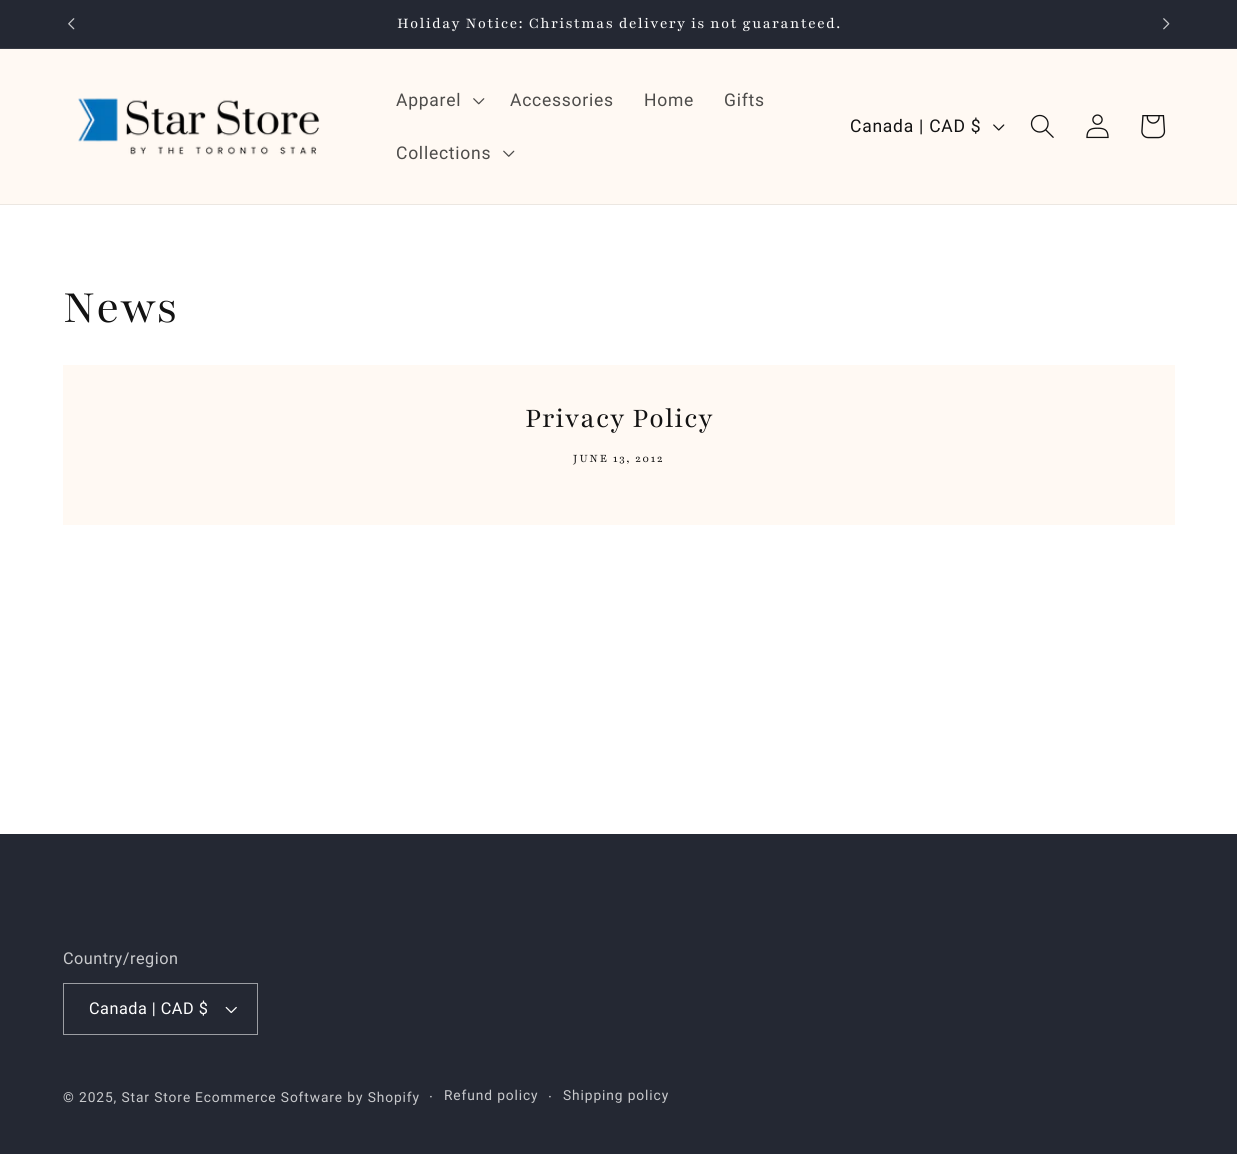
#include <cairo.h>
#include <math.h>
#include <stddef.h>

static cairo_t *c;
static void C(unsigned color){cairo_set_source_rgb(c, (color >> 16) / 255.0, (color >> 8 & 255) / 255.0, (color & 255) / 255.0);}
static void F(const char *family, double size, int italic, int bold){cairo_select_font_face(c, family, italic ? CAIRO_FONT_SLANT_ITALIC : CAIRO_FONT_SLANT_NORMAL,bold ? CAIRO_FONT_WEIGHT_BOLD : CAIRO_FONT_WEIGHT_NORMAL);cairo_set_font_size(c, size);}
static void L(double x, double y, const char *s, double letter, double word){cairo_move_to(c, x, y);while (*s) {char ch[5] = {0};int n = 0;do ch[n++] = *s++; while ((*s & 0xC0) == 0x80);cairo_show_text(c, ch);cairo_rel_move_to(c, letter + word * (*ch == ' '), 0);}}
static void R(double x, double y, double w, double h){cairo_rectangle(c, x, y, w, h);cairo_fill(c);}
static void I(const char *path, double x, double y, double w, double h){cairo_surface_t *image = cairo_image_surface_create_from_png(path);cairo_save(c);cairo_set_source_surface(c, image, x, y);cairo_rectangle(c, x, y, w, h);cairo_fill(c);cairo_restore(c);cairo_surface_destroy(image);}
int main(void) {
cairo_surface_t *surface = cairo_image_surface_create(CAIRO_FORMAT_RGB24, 1237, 1154);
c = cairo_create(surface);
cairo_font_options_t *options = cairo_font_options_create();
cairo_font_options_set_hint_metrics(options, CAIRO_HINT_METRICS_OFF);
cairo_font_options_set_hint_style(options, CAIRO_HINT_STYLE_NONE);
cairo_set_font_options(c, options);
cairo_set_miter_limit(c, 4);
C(0xffffff);
cairo_paint(c);
C(0x242833);
R(0,0,1237,48);
C(0x363943);
R(0,48,1237,1);
I("1.png",68,18,7,12);
F("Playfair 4",16.25,0,0);
C(0xffffff);
L(397,28,"Holiday Notice: Christmas delivery is not guaranteed.",1.25,0);
I("2.png",1163,18,7,12);
C(0xfff9f3);
R(0,49,1237,155);
C(0xece7e1);
R(0,204,1237,1);
I("3.png",78,98,242,57);
F("Roboto",17.5,0,0);
C(0x4d4c4a);
L(396,106,"Apparel",.75,0);
I("4.png",473,98,12,7);
L(510,106,"Accessories",.75,0);
L(644,106,"Home",.75,0);
L(724,106,"Gifts",.75,0);
L(396,159,"Collections",.75,0);
I("5.png",503,150,12,7);
C(0x121212);
L(850,132,"Canada | CAD $",.75,0);
I("6.png",993,124,12,7);
I("7.png",1030,114,24,24);
I("8.png",1086,114,23,25);
I("9.png",1141,115,25,24);
F("Playfair",50,0,0);
L(63,322,"News",.75,0);
C(0xfff9f3);
R(63,365,1112,160);
F("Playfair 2",30,0,0);
C(0x121212);
L(525,427,"Privacy Policy",.75,0);
F("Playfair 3",12.5,0,0);
L(573,462,"JUNE 13, 2012",1.6,0);
C(0x242833);
R(0,834,1237,320);
F("Roboto",16.25,0,0);
C(0xc8c9cc);
L(63,964,"Country/region",.5,0);
I("10.png",225,1006,12,8);
cairo_rectangle(c,63.5,983.5,194,51);
C(0x9c9ea3);
cairo_set_line_width(c,1);
cairo_stroke(c);
C(0xffffff);
L(89,1014,"Canada | CAD $",.5,0);
F("Roboto",13.75,0,0);
C(0xc8c9cc);
L(63,1102,"© 2025, Star Store",.9,0);
L(195,1102,"Ecommerce Software by Shopify",.9,0);
F("Roboto",15,0,0);
L(429,1102,"·",.9,0);
F("Roboto",13.75,0,0);
L(444,1100,"Refund policy",.9,0);
F("Roboto",15,0,0);
L(548,1102,"·",.9,0);
F("Roboto",13.75,0,0);
L(563,1100,"Shipping policy",.9,0);
cairo_surface_write_to_png(surface, "o.png");
cairo_font_options_destroy(options);
cairo_destroy(c);
cairo_surface_destroy(surface);
return 0;
}
